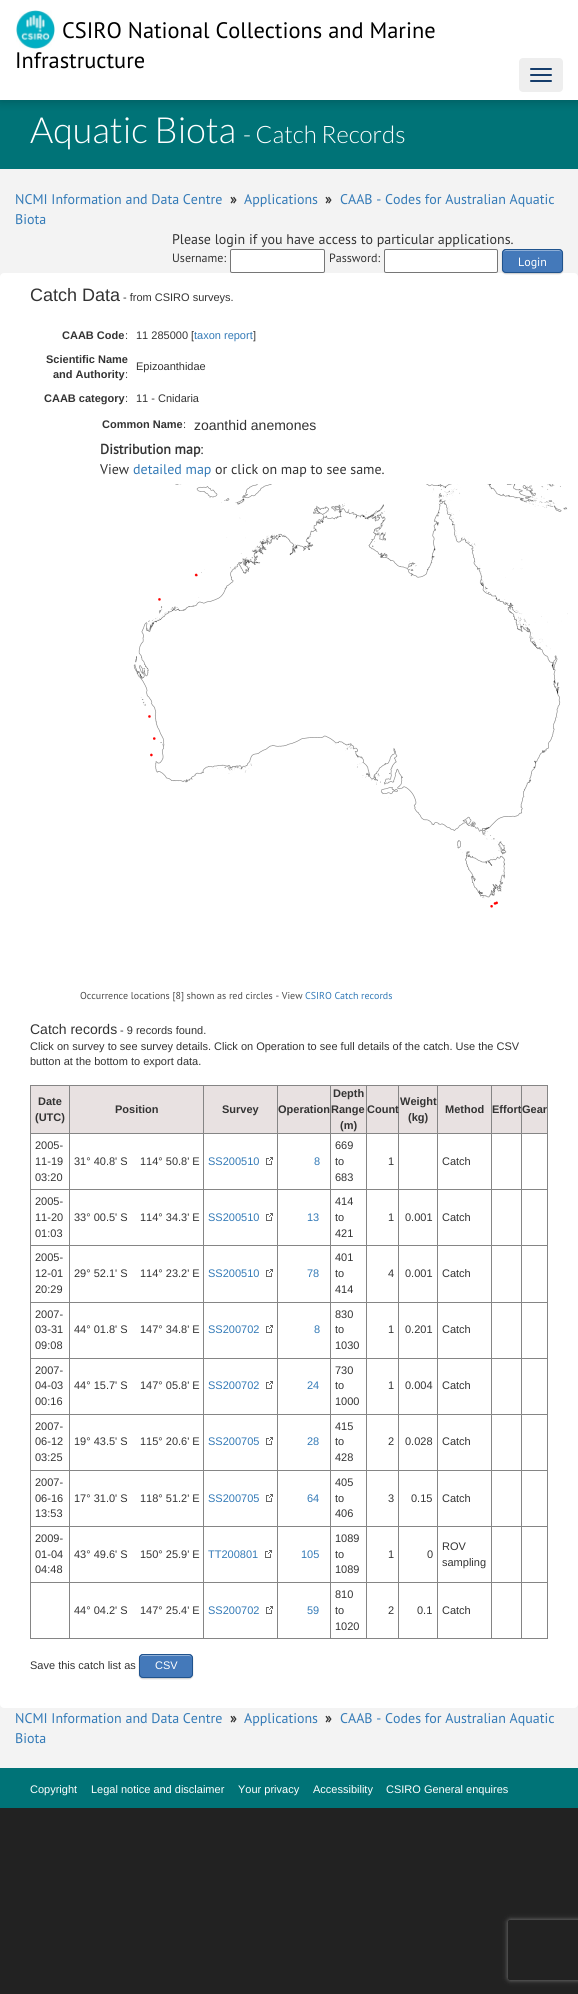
#include <cairo.h>
#include <math.h>
#include <stddef.h>

static cairo_t *c;
static void C(unsigned color){cairo_set_source_rgb(c, (color >> 16) / 255.0, (color >> 8 & 255) / 255.0, (color & 255) / 255.0);}
static void F(const char *family, double size, int italic, int bold){cairo_select_font_face(c, family, italic ? CAIRO_FONT_SLANT_ITALIC : CAIRO_FONT_SLANT_NORMAL,bold ? CAIRO_FONT_WEIGHT_BOLD : CAIRO_FONT_WEIGHT_NORMAL);cairo_set_font_size(c, size);}
static void T(double x, double y, const char *s){cairo_move_to(c, x, y);cairo_show_text(c, s);}
static void R(double x, double y, double w, double h){cairo_rectangle(c, x, y, w, h);cairo_fill(c);}
static void Q(double x, double y, double w, double h, double r){cairo_new_sub_path(c);cairo_arc(c, x + w - r, y + h - r, r, 0, M_PI / 2);cairo_arc(c, x + r, y + h - r, r, M_PI / 2, M_PI);cairo_arc(c, x + r, y + r, r, M_PI, 1.5 * M_PI);cairo_arc(c, x + w - r, y + r, r, 1.5 * M_PI, 2 * M_PI);cairo_close_path(c);}
static void S(double x, double y, double w, double h, double r, double blur, double alpha){cairo_push_group_with_content(c, CAIRO_CONTENT_ALPHA);cairo_set_operator(c, CAIRO_OPERATOR_SOURCE);for (int i = 15; i >= -15 && fmin(w, h) + blur * i / 3 > 0; i -= 2) {double e = blur * i / 6;cairo_set_source_rgba(c, 0, 0, 0, alpha * erfc((i - 1) / 8.5) / 2);Q(x - e, y - e, w + 2 * e, h + 2 * e, fmax(0, fmin(r + e + blur * .6, fmin(w, h) / 2 + e)));cairo_fill(c);}cairo_pattern_t *soft = cairo_pop_group(c);cairo_mask(c, soft);cairo_pattern_destroy(soft);}
static void I(const char *path, double x, double y, double w, double h){cairo_surface_t *image = cairo_image_surface_create_from_png(path);cairo_save(c);cairo_set_source_surface(c, image, x, y);cairo_rectangle(c, x, y, w, h);cairo_fill(c);cairo_restore(c);cairo_surface_destroy(image);}
int main(void) {
cairo_surface_t *surface = cairo_image_surface_create(CAIRO_FORMAT_RGB24, 578, 1994);
c = cairo_create(surface);
cairo_font_options_t *options = cairo_font_options_create();
cairo_font_options_set_hint_metrics(options, CAIRO_HINT_METRICS_OFF);
cairo_font_options_set_hint_style(options, CAIRO_HINT_STYLE_NONE);
cairo_set_font_options(c, options);
cairo_set_miter_limit(c, 4);
C(0x222222);
cairo_paint(c);
C(0xf3f3f3);
R(0,169,578,1599);
C(0x007377);
R(0,100,578,69);
C(0x000000);
S(0,2,578,100,0,5,.2);
C(0xffffff);
R(0,0,578,100);
I("1.png",16,10,39,39);
F("PT Sans",22.4,0,0);
C(0x000000);
T(62,38,"CSIRO National Collections and Marine");
T(15,68,"Infrastructure");
C(0xeeeeee);
Q(519,58,44,34,4);
cairo_fill(c);
C(0x153d6b);
Q(530,68,22,2,1);
cairo_fill(c);
Q(530,74,22,2,1);
cairo_fill(c);
Q(530,80,22,2,1);
cairo_fill(c);
F("Lato Light",36,0,0);
C(0xffffff);
T(30,143,"Aquatic Biota");
F("Lato Light",24,0,0);
T(243,143,"- Catch Records");
F("PT Sans",14,0,0);
C(0x337ab7);
T(15,204,"NCMI Information and Data Centre");
F("PT Sans",14,0,1);
C(0x333333);
T(230,204,"»");
F("PT Sans",14,0,0);
C(0x337ab7);
T(244,204,"Applications");
F("PT Sans",14,0,1);
C(0x333333);
T(325,204,"»");
F("PT Sans",14,0,0);
C(0x337ab7);
T(340,204,"CAAB - Codes for Australian Aquatic");
T(15,224,"Biota");
C(0x333333);
T(172,244,"Please login if you have access to particular applications.");
F("PT Sans",12,0,0);
T(172,262,"Username:");
C(0xffffff);
Q(230.5,249.5,94,23,1.5);
cairo_fill_preserve(c);
C(0x767676);
cairo_set_line_width(c,1);
cairo_stroke(c);
C(0x333333);
T(329,262,"Password:");
C(0xffffff);
Q(384.5,249.5,113,23,1.5);
cairo_fill_preserve(c);
C(0x767676);
cairo_stroke(c);
C(0xffffff);
Q(0,273,578,1435,4);
cairo_fill(c);
C(0x000000);
S(502,250,61,24,4,.5,.2);
C(0x4479ba);
Q(502,249,61,24,4);
cairo_fill(c);
C(0x8fafd6);
cairo_new_path(c);
cairo_move_to(c,506,251);
cairo_line_to(c,559,251);
cairo_curve_to(c,561,251,562,252,562,254);
cairo_curve_to(c,562,248,555,250,550,250);
cairo_line_to(c,515,250);
cairo_curve_to(c,510,250,503,248,503,254);
cairo_curve_to(c,503,252,504,251,506,251);
cairo_close_path(c);
cairo_fill(c);
Q(502.5,249.5,60,23,3.5);
C(0x20538d);
cairo_stroke(c);
C(0xffffff);
T(518,266,"Login");
cairo_save(c);
cairo_set_fill_rule(c,CAIRO_FILL_RULE_EVEN_ODD);
cairo_new_path(c);
cairo_move_to(c,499,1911);
cairo_line_to(c,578,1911);
cairo_line_to(c,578,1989);
cairo_line_to(c,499,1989);
cairo_close_path(c);
cairo_move_to(c,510,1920);
cairo_line_to(c,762,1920);
cairo_curve_to(c,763,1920,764,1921,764,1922);
cairo_line_to(c,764,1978);
cairo_curve_to(c,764,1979,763,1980,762,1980);
cairo_line_to(c,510,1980);
cairo_curve_to(c,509,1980,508,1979,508,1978);
cairo_line_to(c,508,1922);
cairo_curve_to(c,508,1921,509,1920,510,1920);
cairo_close_path(c);
cairo_clip(c);
C(0x808080);
S(508,1920,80,60,2,2.5,1);
cairo_restore(c);
F("Liberation Sans",18,0,0);
C(0x333333);
T(30,301,"Catch Data");
F("Liberation Sans",11,0,0);
T(123,301,"- from CSIRO surveys.");
F("Liberation Sans",11,0,1);
T(62,339,"CAAB Code");
F("Liberation Sans",11,0,0);
T(125,339,":");
T(136,339,"11 285000 [");
C(0x337ab7);
T(194,339,"taxon report");
C(0x333333);
T(253,339,"]");
F("Liberation Sans",11,0,1);
T(46,363,"Scientific Name");
T(53,378,"and Authority");
F("Liberation Sans",11,0,0);
T(125,378,":");
T(136,370,"Epizoanthidae");
F("Liberation Sans",11,0,1);
T(44,402,"CAAB category");
F("Liberation Sans",11,0,0);
T(125,402,":");
T(136,402,"11 - Cnidaria");
F("Liberation Sans",11,0,1);
T(102,428,"Common Name");
F("Liberation Sans",11,0,0);
T(183,428,":");
F("Liberation Sans",14,0,0);
T(194,430,"zoanthid anemones");
F("PT Sans",14,0,1);
T(100,454,"Distribution map");
F("PT Sans",14,0,0);
T(200,454,":");
T(100,474,"View");
C(0x337ab7);
T(133,474,"detailed map");
C(0x333333);
T(215,474,"or click on map to see same.");
I("2.png",133,484,435,424);
F("PT Sans",10,0,0);
C(0x4a4a4a);
T(80,999,"Occurrence locations [8] shown as red circles - View");
C(0x337ab7);
T(305,999,"CSIRO Catch records");
F("Liberation Sans",14,0,0);
C(0x333333);
T(30,1034,"Catch records");
F("Liberation Sans",11,0,0);
T(120,1034,"- 9 records found.");
T(30,1050,"Click on survey to see survey details. Click on Operation to see full details of the catch. Use the CSV");
T(30,1065,"button at the bottom to export data.");
C(0xe8e1e1);
R(31,1086,38,47);
C(0x858585);
R(521,1085,27,1);
R(521,1133,27,1);
R(521,1189,27,1);
R(521,1245,27,1);
R(521,1302,27,1);
R(521,1358,27,1);
R(521,1414,27,1);
R(521,1470,27,1);
R(521,1526,27,1);
R(521,1582,27,1);
R(547,1582,1,57);
R(521,1638,27,1);
R(521,1582,1,57);
R(491,1582,31,1);
R(521,1526,1,57);
R(491,1526,31,1);
R(521,1470,1,57);
R(491,1470,31,1);
R(521,1414,1,57);
R(491,1414,31,1);
R(521,1358,1,57);
R(491,1358,31,1);
R(521,1302,1,57);
R(491,1302,31,1);
R(521,1245,1,58);
R(491,1245,31,1);
R(521,1189,1,57);
R(491,1189,31,1);
R(521,1133,1,57);
R(491,1133,31,1);
R(521,1085,1,49);
R(491,1085,31,1);
R(491,1638,31,1);
R(491,1582,1,57);
R(437,1582,55,1);
R(491,1526,1,57);
R(437,1526,55,1);
R(491,1470,1,57);
R(437,1470,55,1);
R(491,1414,1,57);
R(437,1414,55,1);
R(491,1358,1,57);
R(437,1358,55,1);
R(491,1302,1,57);
R(437,1302,55,1);
R(491,1245,1,58);
R(437,1245,55,1);
R(491,1189,1,57);
R(437,1189,55,1);
R(491,1133,1,57);
R(437,1133,55,1);
R(491,1085,1,49);
R(437,1085,55,1);
R(437,1638,55,1);
R(437,1582,1,57);
R(398,1582,40,1);
R(437,1526,1,57);
R(398,1526,40,1);
R(437,1470,1,57);
R(398,1470,40,1);
R(437,1414,1,57);
R(398,1414,40,1);
R(437,1358,1,57);
R(398,1358,40,1);
R(437,1302,1,57);
R(398,1302,40,1);
R(437,1245,1,58);
R(398,1245,40,1);
R(437,1189,1,57);
R(398,1189,40,1);
R(437,1133,1,57);
R(398,1133,40,1);
R(437,1085,1,49);
R(398,1085,40,1);
R(398,1638,40,1);
R(398,1582,1,57);
R(366,1582,33,1);
R(398,1526,1,57);
R(366,1526,33,1);
R(398,1470,1,57);
R(366,1470,33,1);
R(398,1414,1,57);
R(366,1414,33,1);
R(398,1358,1,57);
R(366,1358,33,1);
R(398,1302,1,57);
R(366,1302,33,1);
R(398,1245,1,58);
R(366,1245,33,1);
R(398,1189,1,57);
R(366,1189,33,1);
R(398,1133,1,57);
R(366,1133,33,1);
R(398,1085,1,49);
R(366,1085,33,1);
R(366,1638,33,1);
R(366,1582,1,57);
R(330,1582,37,1);
R(366,1526,1,57);
R(330,1526,37,1);
R(366,1470,1,57);
R(330,1470,37,1);
R(366,1414,1,57);
R(330,1414,37,1);
R(366,1358,1,57);
R(330,1358,37,1);
R(366,1302,1,57);
R(330,1302,37,1);
R(366,1245,1,58);
R(330,1245,37,1);
R(366,1189,1,57);
R(330,1189,37,1);
R(366,1133,1,57);
R(330,1133,37,1);
R(366,1085,1,49);
R(330,1085,37,1);
R(330,1638,37,1);
R(330,1582,1,57);
R(277,1582,54,1);
R(330,1526,1,57);
R(277,1526,54,1);
R(330,1470,1,57);
R(277,1470,54,1);
R(330,1414,1,57);
R(277,1414,54,1);
R(330,1358,1,57);
R(277,1358,54,1);
R(330,1302,1,57);
R(277,1302,54,1);
R(330,1245,1,58);
R(277,1245,54,1);
R(330,1189,1,57);
R(277,1189,54,1);
R(330,1133,1,57);
R(277,1133,54,1);
R(330,1085,1,49);
R(277,1085,54,1);
R(277,1638,54,1);
R(277,1582,1,57);
R(203,1582,75,1);
R(277,1526,1,57);
R(203,1526,75,1);
R(277,1470,1,57);
R(203,1470,75,1);
R(277,1414,1,57);
R(203,1414,75,1);
R(277,1358,1,57);
R(203,1358,75,1);
R(277,1302,1,57);
R(203,1302,75,1);
R(277,1245,1,58);
R(203,1245,75,1);
R(277,1189,1,57);
R(203,1189,75,1);
R(277,1133,1,57);
R(203,1133,75,1);
R(277,1085,1,49);
R(203,1085,75,1);
R(203,1638,75,1);
R(203,1582,1,57);
R(69,1582,135,1);
R(203,1526,1,57);
R(69,1526,135,1);
R(203,1470,1,57);
R(69,1470,135,1);
R(203,1414,1,57);
R(69,1414,135,1);
R(203,1358,1,57);
R(69,1358,135,1);
R(203,1302,1,57);
R(69,1302,135,1);
R(203,1245,1,58);
R(69,1245,135,1);
R(203,1189,1,57);
R(69,1189,135,1);
R(203,1133,1,57);
R(69,1133,135,1);
R(203,1085,1,49);
R(69,1085,135,1);
R(69,1638,135,1);
R(69,1582,1,57);
R(30,1582,40,1);
R(69,1526,1,57);
R(30,1526,40,1);
R(69,1470,1,57);
R(30,1470,40,1);
R(69,1414,1,57);
R(30,1414,40,1);
R(69,1358,1,57);
R(30,1358,40,1);
R(69,1302,1,57);
R(30,1302,40,1);
R(69,1245,1,58);
R(30,1245,40,1);
R(69,1189,1,57);
R(30,1189,40,1);
R(69,1133,1,57);
R(30,1133,40,1);
R(69,1085,1,49);
R(30,1085,40,1);
R(30,1638,40,1);
R(30,1582,1,57);
R(30,1526,1,57);
R(30,1470,1,57);
R(30,1414,1,57);
R(30,1358,1,57);
R(30,1302,1,57);
R(30,1245,1,58);
R(30,1189,1,57);
R(30,1133,1,57);
R(30,1085,1,49);
F("Liberation Sans",11,0,1);
C(0x333333);
T(38,1105,"Date");
T(35,1121,"(UTC)");
C(0xe8e1e1);
R(70,1086,133,47);
C(0x333333);
T(115,1113,"Position");
C(0xe8e1e1);
R(204,1086,73,47);
C(0x333333);
T(222,1113,"Survey");
C(0xe8e1e1);
R(278,1086,52,47);
C(0x333333);
T(278,1113,"Operation");
C(0xe8e1e1);
R(331,1086,35,47);
C(0x333333);
T(333,1097,"Depth");
T(331,1113,"Range");
T(340,1129,"(m)");
C(0xe8e1e1);
R(367,1086,31,47);
C(0x333333);
T(367,1113,"Count");
C(0xe8e1e1);
R(399,1086,38,47);
C(0x333333);
T(400,1105,"Weight");
T(408,1121,"(kg)");
C(0xe8e1e1);
R(438,1086,53,47);
C(0x333333);
T(445,1113,"Method");
C(0xe8e1e1);
R(492,1086,29,47);
C(0x333333);
T(492,1113,"Effort");
C(0xe8e1e1);
R(522,1086,25,47);
C(0x858585);
R(547,1526,1,57);
R(547,1470,1,57);
R(547,1414,1,57);
R(547,1358,1,57);
R(547,1302,1,57);
R(547,1245,1,58);
R(547,1189,1,57);
R(547,1133,1,57);
R(547,1085,1,49);
C(0x333333);
T(522,1113,"Gear");
F("Liberation Sans",11,0,0);
T(35,1149,"2005-");
T(35,1165,"11-19");
T(35,1181,"03:20");
T(74,1165,"31° 40.8' S");
T(140,1165,"114° 50.8' E");
C(0x337ab7);
T(208,1165,"SS200510");
I("3.png",266,1157,7,8);
T(314,1165,"8");
C(0x333333);
T(335,1149,"669");
T(335,1165,"to");
T(335,1181,"683");
T(388,1165,"1");
T(442,1165,"Catch");
T(35,1205,"2005-");
T(35,1221,"11-20");
T(35,1237,"01:03");
T(74,1221,"33° 00.5' S");
T(140,1221,"114° 34.3' E");
C(0x337ab7);
T(208,1221,"SS200510");
I("3.png",266,1213,7,8);
T(307,1221,"13");
C(0x333333);
T(335,1205,"414");
T(335,1221,"to");
T(335,1237,"421");
T(388,1221,"1");
T(405,1221,"0.001");
T(442,1221,"Catch");
T(35,1261,"2005-");
T(35,1277,"12-01");
T(35,1293,"20:29");
T(74,1277,"29° 52.1' S");
T(140,1277,"114° 23.2' E");
C(0x337ab7);
T(208,1277,"SS200510");
I("3.png",266,1269,7,8);
T(307,1277,"78");
C(0x333333);
T(335,1261,"401");
T(335,1277,"to");
T(335,1293,"414");
T(388,1277,"4");
T(405,1277,"0.001");
T(442,1277,"Catch");
T(35,1318,"2007-");
T(35,1333,"03-31");
T(35,1349,"09:08");
T(74,1333,"44° 01.8' S");
T(140,1333,"147° 34.8' E");
C(0x337ab7);
T(208,1333,"SS200702");
I("3.png",266,1325,7,8);
T(314,1333,"8");
C(0x333333);
T(335,1318,"830");
T(335,1333,"to");
T(335,1349,"1030");
T(388,1333,"1");
T(405,1333,"0.201");
T(442,1333,"Catch");
T(35,1374,"2007-");
T(35,1389,"04-03");
T(35,1405,"00:16");
T(74,1389,"44° 15.7' S");
T(140,1389,"147° 05.8' E");
C(0x337ab7);
T(208,1389,"SS200702");
I("3.png",266,1381,7,8);
T(307,1389,"24");
C(0x333333);
T(335,1374,"730");
T(335,1389,"to");
T(335,1405,"1000");
T(388,1389,"1");
T(405,1389,"0.004");
T(442,1389,"Catch");
T(35,1430,"2007-");
T(35,1445,"06-12");
T(35,1461,"03:25");
T(74,1445,"19° 43.5' S");
T(140,1445,"115° 20.6' E");
C(0x337ab7);
T(208,1445,"SS200705");
I("3.png",266,1437,7,8);
T(307,1445,"28");
C(0x333333);
T(335,1430,"415");
T(335,1445,"to");
T(335,1461,"428");
T(388,1445,"2");
T(405,1445,"0.028");
T(442,1445,"Catch");
T(35,1486,"2007-");
T(35,1502,"06-16");
T(35,1517,"13:53");
T(74,1502,"17° 31.0' S");
T(140,1502,"118° 51.2' E");
C(0x337ab7);
T(208,1502,"SS200705");
I("3.png",266,1494,7,8);
T(307,1502,"64");
C(0x333333);
T(335,1486,"405");
T(335,1502,"to");
T(335,1517,"406");
T(388,1502,"3");
T(411,1502,"0.15");
T(442,1502,"Catch");
T(35,1542,"2009-");
T(35,1558,"01-04");
T(35,1573,"04:48");
T(74,1558,"43° 49.6' S");
T(140,1558,"150° 25.9' E");
C(0x337ab7);
T(208,1558,"TT200801");
I("3.png",265,1550,7,8);
T(301,1558,"105");
C(0x333333);
T(335,1542,"1089");
T(335,1558,"to");
T(335,1573,"1089");
T(388,1558,"1");
T(427,1558,"0");
T(442,1550,"ROV");
T(442,1566,"sampling");
T(74,1614,"44° 04.2' S");
T(140,1614,"147° 25.4' E");
C(0x337ab7);
T(208,1614,"SS200702");
I("3.png",266,1606,7,8);
T(307,1614,"59");
C(0x333333);
T(335,1598,"810");
T(335,1614,"to");
T(335,1630,"1020");
T(388,1614,"2");
T(417,1614,"0.1");
T(442,1614,"Catch");
T(30,1669,"Save this catch list as");
C(0x000000);
S(139,1655,54,24,4,.5,.2);
C(0x4479ba);
Q(139,1654,54,24,4);
cairo_fill(c);
C(0x8fafd6);
cairo_new_path(c);
cairo_move_to(c,143,1656);
cairo_line_to(c,189,1656);
cairo_curve_to(c,191,1656,192,1657,192,1659);
cairo_curve_to(c,192,1653,186,1655,181,1655);
cairo_line_to(c,151,1655);
cairo_curve_to(c,146,1655,140,1653,140,1659);
cairo_curve_to(c,140,1657,141,1656,143,1656);
cairo_close_path(c);
cairo_fill(c);
Q(139.5,1654.5,53,23,3.5);
C(0x20538d);
cairo_stroke(c);
C(0xffffff);
T(155,1669,"CSV");
F("PT Sans",14,0,0);
C(0x337ab7);
T(15,1723,"NCMI Information and Data Centre");
F("PT Sans",14,0,1);
C(0x333333);
T(230,1723,"»");
F("PT Sans",14,0,0);
C(0x337ab7);
T(244,1723,"Applications");
F("PT Sans",14,0,1);
C(0x333333);
T(325,1723,"»");
F("PT Sans",14,0,0);
C(0x337ab7);
T(340,1723,"CAAB - Codes for Australian Aquatic");
T(15,1743,"Biota");
C(0x007377);
R(0,1768,578,40);
F("Liberation Sans",11,0,0);
C(0xffffff);
T(30,1793,"Copyright");
T(91,1793,"Legal notice and disclaimer");
T(238,1793,"Your privacy");
T(313,1793,"Accessibility");
T(386,1793,"CSIRO General enquires");
cairo_surface_write_to_png(surface, "o.png");
cairo_font_options_destroy(options);
cairo_destroy(c);
cairo_surface_destroy(surface);
return 0;
}
